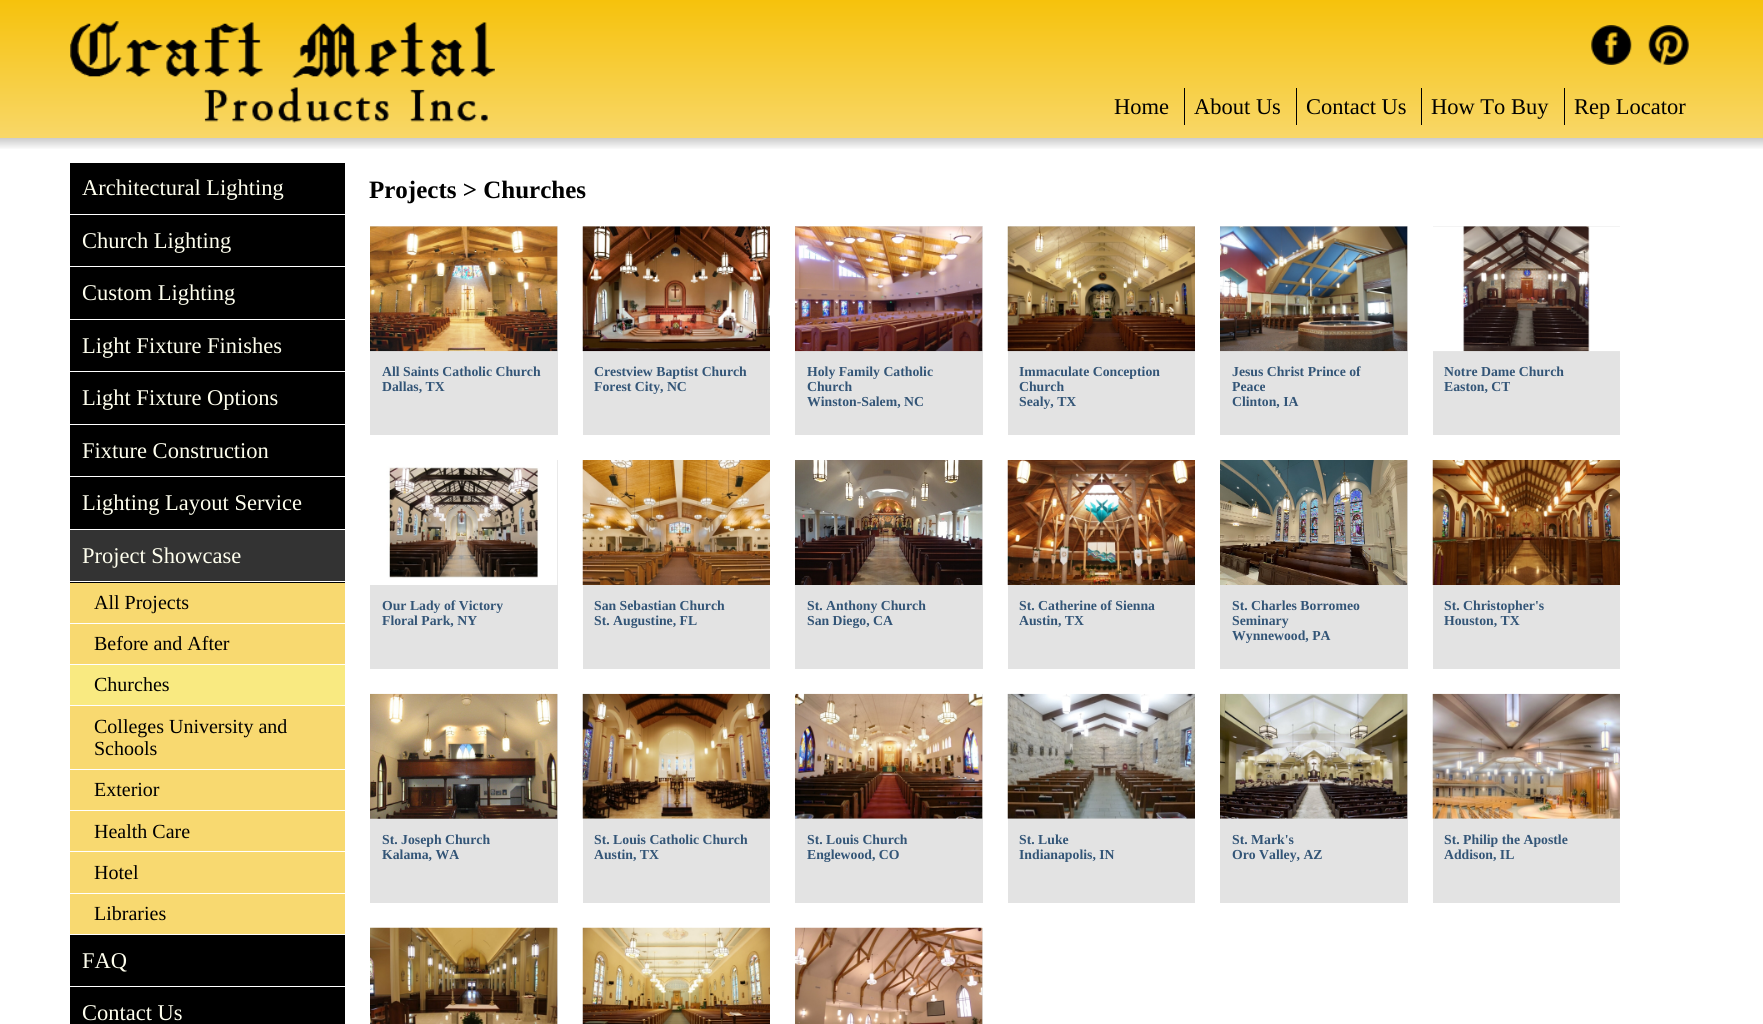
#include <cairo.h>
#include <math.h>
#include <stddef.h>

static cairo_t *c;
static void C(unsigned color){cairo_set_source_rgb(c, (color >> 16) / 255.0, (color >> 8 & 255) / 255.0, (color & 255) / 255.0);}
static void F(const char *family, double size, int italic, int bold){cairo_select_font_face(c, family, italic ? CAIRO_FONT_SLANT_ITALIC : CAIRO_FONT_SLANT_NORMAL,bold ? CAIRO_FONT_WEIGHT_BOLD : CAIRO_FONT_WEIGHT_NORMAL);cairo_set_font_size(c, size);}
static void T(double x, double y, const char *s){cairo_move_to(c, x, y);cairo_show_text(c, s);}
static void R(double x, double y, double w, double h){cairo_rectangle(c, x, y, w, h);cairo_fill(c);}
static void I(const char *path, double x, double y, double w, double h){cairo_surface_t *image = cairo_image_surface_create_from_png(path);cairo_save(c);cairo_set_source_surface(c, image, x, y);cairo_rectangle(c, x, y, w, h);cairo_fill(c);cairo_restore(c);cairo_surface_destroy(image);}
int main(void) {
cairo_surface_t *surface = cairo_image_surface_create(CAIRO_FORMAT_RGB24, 1763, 1024);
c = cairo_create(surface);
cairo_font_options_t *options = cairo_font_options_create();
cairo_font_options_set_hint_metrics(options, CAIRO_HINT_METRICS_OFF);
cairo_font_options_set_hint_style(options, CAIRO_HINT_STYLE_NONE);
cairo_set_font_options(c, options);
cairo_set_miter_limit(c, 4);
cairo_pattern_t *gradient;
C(0xffffff);
cairo_paint(c);
gradient = cairo_pattern_create_linear(882,0,882,150);
cairo_pattern_add_color_stop_rgba(gradient,0,0.965,0.761,0.047,1);
cairo_pattern_add_color_stop_rgba(gradient,1,0.973,0.851,0.439,1);
cairo_set_source(c,gradient);
cairo_pattern_destroy(gradient);
R(0,0,1763,138);
I("1.png",70,21,425,102);
I("2.png",1591,25,41,40);
I("3.png",1648,25,41,40);
F("Liberation Serif",22.5,0,0);
C(0x000000);
T(1114,114,"Home");
R(1184,88,1,37);
T(1194,114,"About Us");
R(1296,88,1,37);
T(1306,114,"Contact Us");
R(1421,88,1,37);
T(1431,114,"How To Buy");
R(1564,88,1,37);
T(1574,114,"Rep Locator");
R(70,163,275,51);
C(0xffffee);
T(82,195,"Architectural Lighting");
C(0x000000);
R(70,215,275,104);
C(0xffffff);
R(70,266,275,1);
C(0xffffee);
T(82,248,"Church Lighting");
T(82,300,"Custom Lighting");
C(0x000000);
R(70,320,275,104);
C(0xffffff);
R(70,371,275,1);
C(0xffffee);
T(82,353,"Light Fixture Finishes");
T(82,405,"Light Fixture Options");
C(0x000000);
R(70,425,275,104);
C(0xffffff);
R(70,476,275,1);
C(0xffffee);
T(82,458,"Fixture Construction");
T(82,510,"Lighting Layout Service");
C(0x000000);
R(70,582,275,1);
C(0x333333);
R(70,530,275,51);
C(0xffffee);
T(82,563,"Project Showcase");
C(0xf8d970);
R(70,583,275,40);
F("Liberation Serif",20,0,0);
C(0x000000);
T(94,609,"All Projects");
C(0xf8d970);
R(70,624,275,40);
C(0x000000);
T(94,650,"Before and After");
C(0xf9ea81);
R(70,665,275,40);
C(0x000000);
T(94,691,"Churches");
C(0xf8d970);
R(70,706,275,63);
C(0x000000);
T(94,733,"Colleges University and");
T(94,755,"Schools");
C(0xf8d970);
R(70,770,275,40);
C(0x000000);
T(94,796,"Exterior");
C(0xf8d970);
R(70,811,275,82);
C(0xffffff);
R(70,851,275,1);
C(0x000000);
T(94,838,"Health Care");
T(94,879,"Hotel");
C(0xf8d970);
R(70,894,275,40);
C(0x000000);
T(94,920,"Libraries");
R(70,935,275,89);
C(0xffffff);
R(70,986,275,1);
F("Liberation Serif",22.5,0,0);
C(0xffffee);
T(82,968,"FAQ");
T(82,1020,"Contact Us");
F("Liberation Serif",25,0,1);
C(0x000000);
T(369,198,"Projects > Churches");
C(0xe3e3e3);
R(370,226,188,209);
I("4.png",370,226,188,126);
F("Liberation Serif",13.75,0,1);
C(0x335577);
T(382,376,"All Saints Catholic Church");
T(382,391,"Dallas, TX");
C(0xe3e3e3);
R(583,226,187,209);
I("5.png",582,226,188,126);
C(0x335577);
T(594,376,"Crestview Baptist Church");
T(594,391,"Forest City, NC");
C(0xe3e3e3);
R(795,226,188,209);
I("6.png",795,226,188,126);
C(0x335577);
T(807,376,"Holy Family Catholic");
T(807,391,"Church");
T(807,406,"Winston-Salem, NC");
C(0xe3e3e3);
R(1008,226,187,209);
I("7.png",1007,226,188,126);
C(0x335577);
T(1019,376,"Immaculate Conception");
T(1019,391,"Church");
T(1019,406,"Sealy, TX");
C(0xe3e3e3);
R(1220,226,188,209);
I("8.png",1220,226,188,126);
C(0x335577);
T(1232,376,"Jesus Christ Prince of");
T(1232,391,"Peace");
T(1232,406,"Clinton, IA");
C(0xe3e3e3);
R(1433,226,187,209);
I("9.png",1433,226,187,126);
C(0x335577);
T(1444,376,"Notre Dame Church");
T(1444,391,"Easton, CT");
C(0xe3e3e3);
R(370,460,188,209);
I("10.png",370,460,188,125);
C(0x335577);
T(382,610,"Our Lady of Victory");
T(382,625,"Floral Park, NY");
C(0xe3e3e3);
R(583,585,187,84);
I("11.png",582,460,188,125);
C(0x335577);
T(594,610,"San Sebastian Church");
T(594,625,"St. Augustine, FL");
C(0xe3e3e3);
R(795,460,188,209);
I("12.png",795,460,188,125);
C(0x335577);
T(807,610,"St. Anthony Church");
T(807,625,"San Diego, CA");
C(0xe3e3e3);
R(1008,585,187,84);
I("13.png",1007,460,188,125);
C(0x335577);
T(1019,610,"St. Catherine of Sienna");
T(1019,625,"Austin, TX");
C(0xe3e3e3);
R(1220,460,188,209);
I("14.png",1220,460,188,125);
C(0x335577);
T(1232,610,"St. Charles Borromeo");
T(1232,625,"Seminary");
T(1232,640,"Wynnewood, PA");
C(0xe3e3e3);
R(1433,585,187,84);
I("15.png",1432,460,188,125);
C(0x335577);
T(1444,610,"St. Christopher's");
T(1444,625,"Houston, TX");
C(0xe3e3e3);
R(370,694,188,209);
I("16.png",370,693,188,126);
C(0x335577);
T(382,844,"St. Joseph Church");
T(382,859,"Kalama, WA");
C(0xe3e3e3);
R(583,818,187,85);
I("17.png",582,693,188,126);
C(0x335577);
T(594,844,"St. Louis Catholic Church");
T(594,859,"Austin, TX");
C(0xe3e3e3);
R(795,694,188,209);
I("18.png",795,693,188,126);
C(0x335577);
T(807,844,"St. Louis Church");
T(807,859,"Englewood, CO");
C(0xe3e3e3);
R(1008,818,187,85);
I("19.png",1007,693,188,126);
C(0x335577);
T(1019,844,"St. Luke");
T(1019,859,"Indianapolis, IN");
C(0xe3e3e3);
R(1220,694,188,209);
I("20.png",1220,693,188,126);
C(0x335577);
T(1232,844,"St. Mark's");
T(1232,859,"Oro Valley, AZ");
C(0xe3e3e3);
R(1433,818,187,85);
I("21.png",1432,693,188,126);
C(0x335577);
T(1444,844,"St. Philip the Apostle");
T(1444,859,"Addison, IL");
C(0xe3e3e3);
R(557,928,1,96);
I("22.png",370,927,188,97);
I("23.png",582,927,188,97);
R(982,928,1,96);
I("24.png",795,927,188,97);
gradient = cairo_pattern_create_linear(882,137,882,150);
cairo_pattern_add_color_stop_rgba(gradient,0,0.78,0.78,0.78,1);
cairo_pattern_add_color_stop_rgba(gradient,1,1,1,1,1);
cairo_set_source(c,gradient);
cairo_pattern_destroy(gradient);
R(0,138,1763,11);
cairo_surface_write_to_png(surface, "o.png");
cairo_font_options_destroy(options);
cairo_destroy(c);
cairo_surface_destroy(surface);
return 0;
}
